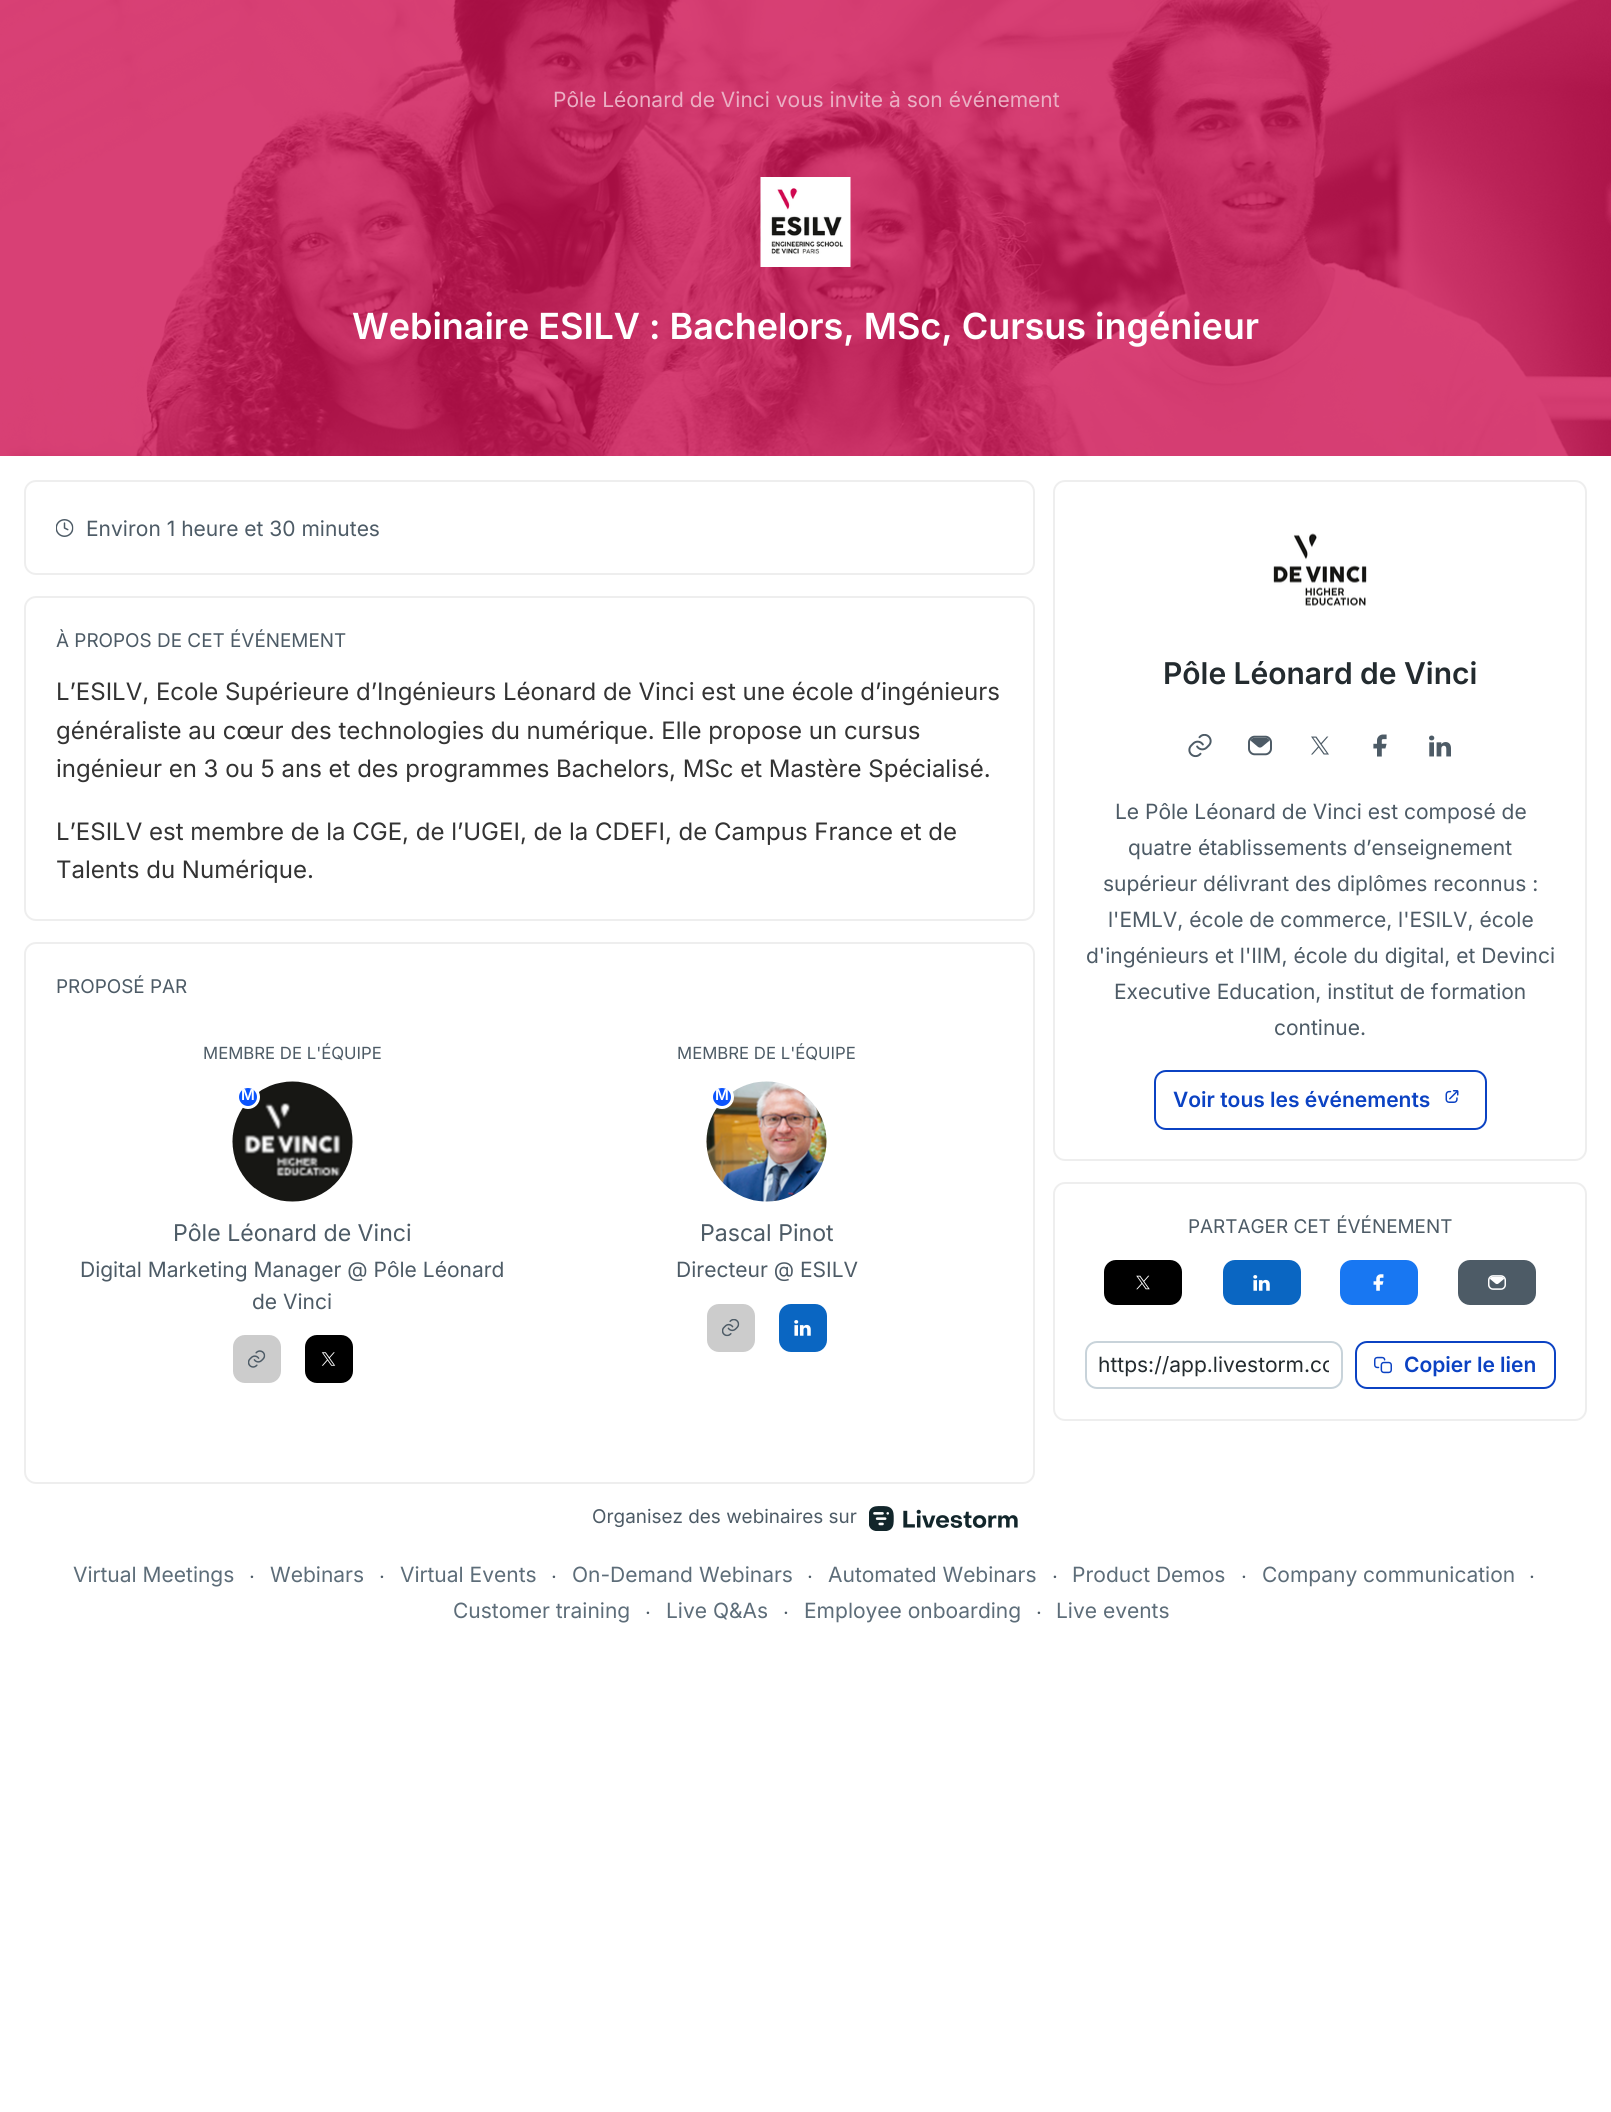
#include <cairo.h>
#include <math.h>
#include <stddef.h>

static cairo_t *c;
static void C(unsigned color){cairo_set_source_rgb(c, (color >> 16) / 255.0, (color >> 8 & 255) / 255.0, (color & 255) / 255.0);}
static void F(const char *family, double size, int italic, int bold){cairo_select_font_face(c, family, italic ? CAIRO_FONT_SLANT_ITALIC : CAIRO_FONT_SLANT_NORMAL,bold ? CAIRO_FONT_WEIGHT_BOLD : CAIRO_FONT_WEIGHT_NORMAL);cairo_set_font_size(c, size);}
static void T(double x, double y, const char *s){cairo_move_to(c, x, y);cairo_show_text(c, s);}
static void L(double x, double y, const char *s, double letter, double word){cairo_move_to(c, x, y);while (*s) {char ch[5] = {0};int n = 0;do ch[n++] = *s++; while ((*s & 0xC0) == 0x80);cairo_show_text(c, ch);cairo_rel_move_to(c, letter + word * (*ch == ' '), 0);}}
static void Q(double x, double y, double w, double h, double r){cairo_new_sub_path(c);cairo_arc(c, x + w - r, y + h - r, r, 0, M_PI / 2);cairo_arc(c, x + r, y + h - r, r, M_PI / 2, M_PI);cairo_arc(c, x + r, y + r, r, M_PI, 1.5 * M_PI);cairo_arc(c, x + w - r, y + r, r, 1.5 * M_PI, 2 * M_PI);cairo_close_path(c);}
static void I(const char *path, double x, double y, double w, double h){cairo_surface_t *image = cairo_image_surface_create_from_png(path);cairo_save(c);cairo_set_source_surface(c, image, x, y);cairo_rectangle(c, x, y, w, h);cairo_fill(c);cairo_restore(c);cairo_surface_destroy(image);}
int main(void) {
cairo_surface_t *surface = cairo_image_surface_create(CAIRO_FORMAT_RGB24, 1611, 2112);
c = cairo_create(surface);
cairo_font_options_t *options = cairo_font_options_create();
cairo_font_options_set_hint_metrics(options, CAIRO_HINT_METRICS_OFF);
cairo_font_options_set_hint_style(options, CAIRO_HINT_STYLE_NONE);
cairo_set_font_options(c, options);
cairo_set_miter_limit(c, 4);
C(0xffffff);
cairo_paint(c);
I("1.png",0,0,1611,456);
F("Inter",21,0,0);
C(0xebafc4);
T(553,107,"Pôle Léonard de Vinci vous invite à son événement");
I("2.png",760,177,91,90);
F("Inter SemiBold",36,0,0);
C(0xffffff);
L(352,339,"Webinaire ESILV : Bachelors, MSc, Cursus ingénieur",-.03,0);
Q(25,481,1009,93,11);
C(0xeeeeee);
cairo_stroke(c);
I("3.png",56,519,18,18);
F("Inter",21,0,0);
C(0x4d5b66);
T(86,536,"Environ 1 heure et 30 minutes");
Q(25,597,1009,323,11);
C(0xeeeeee);
cairo_stroke(c);
F("Inter",18.9,0,0);
C(0x4d5b66);
T(56,647,"À PROPOS DE CET ÉVÉNEMENT");
F("Inter",24,0,0);
C(0x333333);
T(56,700,"L’ESILV, Ecole Supérieure d’Ingénieurs Léonard de Vinci est une école d’ingénieurs");
T(56,739,"généraliste au cœur des technologies du numérique. Elle propose un cursus");
T(56,777,"ingénieur en 3 ou 5 ans et des programmes Bachelors, MSc et Mastère Spécialisé.");
T(56,840,"L’ESILV est membre de la CGE, de l’UGEI, de la CDEFI, de Campus France et de");
T(56,878,"Talents du Numérique.");
Q(25,943,1009,540,11);
C(0xeeeeee);
cairo_stroke(c);
F("Inter",18.9,0,0);
C(0x4d5b66);
T(56,993,"PROPOSÉ PAR");
F("Inter",16.75,0,0);
T(203,1059,"MEMBRE DE L'ÉQUIPE");
I("4.png",232,1081,121,121);
C(0x0b54fe);
cairo_arc(c,248,1097,10.5,0,2 * M_PI);
cairo_fill_preserve(c);
C(0xffffff);
cairo_set_line_width(c,3);
cairo_stroke(c);
F("Inter SemiBold",15,0,0);
T(241,1100,"M");
F("Inter",23.1,0,0);
C(0x4d5b66);
T(173,1241,"Pôle Léonard de Vinci");
F("Inter",21,0,0);
T(80,1277,"Digital Marketing Manager @ Pôle Léonard");
T(252,1309,"de Vinci");
C(0xcccccc);
Q(233,1335,48,48,12);
cairo_fill(c);
I("5.png",248,1350,18,18);
C(0x000000);
Q(305,1335,48,48,12);
cairo_fill(c);
I("6.png",321,1352,15,14);
F("Inter",16.75,0,0);
C(0x4d5b66);
T(677,1059,"MEMBRE DE L'ÉQUIPE");
I("7.png",706,1081,121,121);
C(0x0b54fe);
cairo_arc(c,722,1097,10.5,0,2 * M_PI);
cairo_fill_preserve(c);
C(0xffffff);
cairo_stroke(c);
F("Inter SemiBold",15,0,0);
T(715,1100,"M");
F("Inter",23.1,0,0);
C(0x4d5b66);
T(700,1241,"Pascal Pinot");
F("Inter",21,0,0);
T(676,1277,"Directeur @ ESILV");
C(0xcccccc);
Q(707,1304,48,48,12);
cairo_fill(c);
I("8.png",722,1319,18,18);
C(0x0a66c2);
Q(779,1304,48,48,12);
cairo_fill(c);
I("9.png",794,1320,17,16);
Q(1054,481,532,679,11);
C(0xeeeeee);
cairo_set_line_width(c,2);
cairo_stroke(c);
I("10.png",1273,533,94,73);
F("Inter SemiBold",30,0,0);
C(0x232b2f);
L(1163,684,"Pôle Léonard de Vinci",-.03,0);
I("11.png",1188,734,24,24);
I("12.png",1248,735,24,21);
I("13.png",1311,736,18,19);
I("14.png",1373,734,14,23);
I("15.png",1429,735,22,22);
F("Inter",21,0,0);
C(0x4d5b66);
T(1115,819,"Le Pôle Léonard de Vinci est composé de");
T(1128,855,"quatre établissements d’enseignement");
T(1103,891,"supérieur délivrant des diplômes reconnus :");
T(1108,927,"l'EMLV, école de commerce, l'ESILV, école");
T(1086,963,"d'ingénieurs et l'IIM, école du digital, et Devinci");
T(1114,999,"Executive Education, institut de formation");
T(1274,1035,"continue.");
Q(1155,1071,331,58,11);
C(0x0b42c3);
cairo_stroke(c);
F("Inter SemiBold",21,0,0);
T(1173,1107,"Voir tous les événements");
I("16.png",1445,1090,14,13);
Q(1054,1183,532,237,11);
C(0xeeeeee);
cairo_stroke(c);
F("Inter",18.9,0,0);
C(0x4d5b66);
T(1188,1233,"PARTAGER CET ÉVÉNEMENT");
C(0x000000);
Q(1104,1260,78,45,12);
cairo_fill(c);
I("17.png",1136,1275,14,15);
C(0x0a66c2);
Q(1223,1260,78,45,12);
cairo_fill(c);
I("9.png",1253,1275,17,16);
C(0x1877f2);
Q(1340,1260,78,45,12);
cairo_fill(c);
I("18.png",1373,1274,11,17);
C(0x4d5b66);
Q(1458,1260,78,45,12);
cairo_fill(c);
I("19.png",1488,1275,18,15);
Q(1086,1342,256,46,11);
C(0xc8d3da);
cairo_stroke(c);
cairo_save(c);
cairo_rectangle(c,1098,1341,231,48);
cairo_clip(c);
F("Inter",21,0,0);
C(0x232b2f);
T(1098,1372,"https://app.livestorm.co");
cairo_restore(c);
Q(1356,1342,199,46,11);
C(0x0b42c3);
cairo_stroke(c);
I("20.png",1374,1356,18,18);
F("Inter SemiBold",21,0,0);
T(1404,1372,"Copier le lien");
F("Inter",18.9,0,0);
C(0x4d5b66);
T(592,1523,"Organisez des webinaires sur");
I("21.png",869,1506,149,25);
F("Inter",21,0,0);
C(0x5d6d79);
T(73,1582,"Virtual Meetings");
F("Ubuntu",21,0,0);
C(0x4d5b66);
T(246,1583,"∙");
F("Inter",21,0,0);
C(0x5d6d79);
T(270,1582,"Webinars");
F("Ubuntu",21,0,0);
C(0x4d5b66);
T(376,1583,"∙");
F("Inter",21,0,0);
C(0x5d6d79);
T(400,1582,"Virtual Events");
F("Ubuntu",21,0,0);
C(0x4d5b66);
T(548,1583,"∙");
F("Inter",21,0,0);
C(0x5d6d79);
T(572,1582,"On-Demand Webinars");
F("Ubuntu",21,0,0);
C(0x4d5b66);
T(804,1583,"∙");
F("Inter",21,0,0);
C(0x5d6d79);
T(828,1582,"Automated Webinars");
F("Ubuntu",21,0,0);
C(0x4d5b66);
T(1049,1583,"∙");
F("Inter",21,0,0);
C(0x5d6d79);
T(1072,1582,"Product Demos");
F("Ubuntu",21,0,0);
C(0x4d5b66);
T(1238,1583,"∙");
F("Inter",21,0,0);
C(0x5d6d79);
T(1262,1582,"Company communication");
F("Ubuntu",21,0,0);
C(0x4d5b66);
T(1526,1583,"∙");
F("Inter",21,0,0);
C(0x5d6d79);
T(453,1618,"Customer training");
F("Ubuntu",21,0,0);
C(0x4d5b66);
T(642,1619,"∙");
F("Inter",21,0,0);
C(0x5d6d79);
T(666,1618,"Live Q&As");
F("Ubuntu",21,0,0);
C(0x4d5b66);
T(780,1619,"∙");
F("Inter",21,0,0);
C(0x5d6d79);
T(804,1618,"Employee onboarding");
F("Ubuntu",21,0,0);
C(0x4d5b66);
T(1033,1619,"∙");
F("Inter",21,0,0);
C(0x5d6d79);
T(1056,1618,"Live events");
cairo_surface_write_to_png(surface, "o.png");
cairo_font_options_destroy(options);
cairo_destroy(c);
cairo_surface_destroy(surface);
return 0;
}
